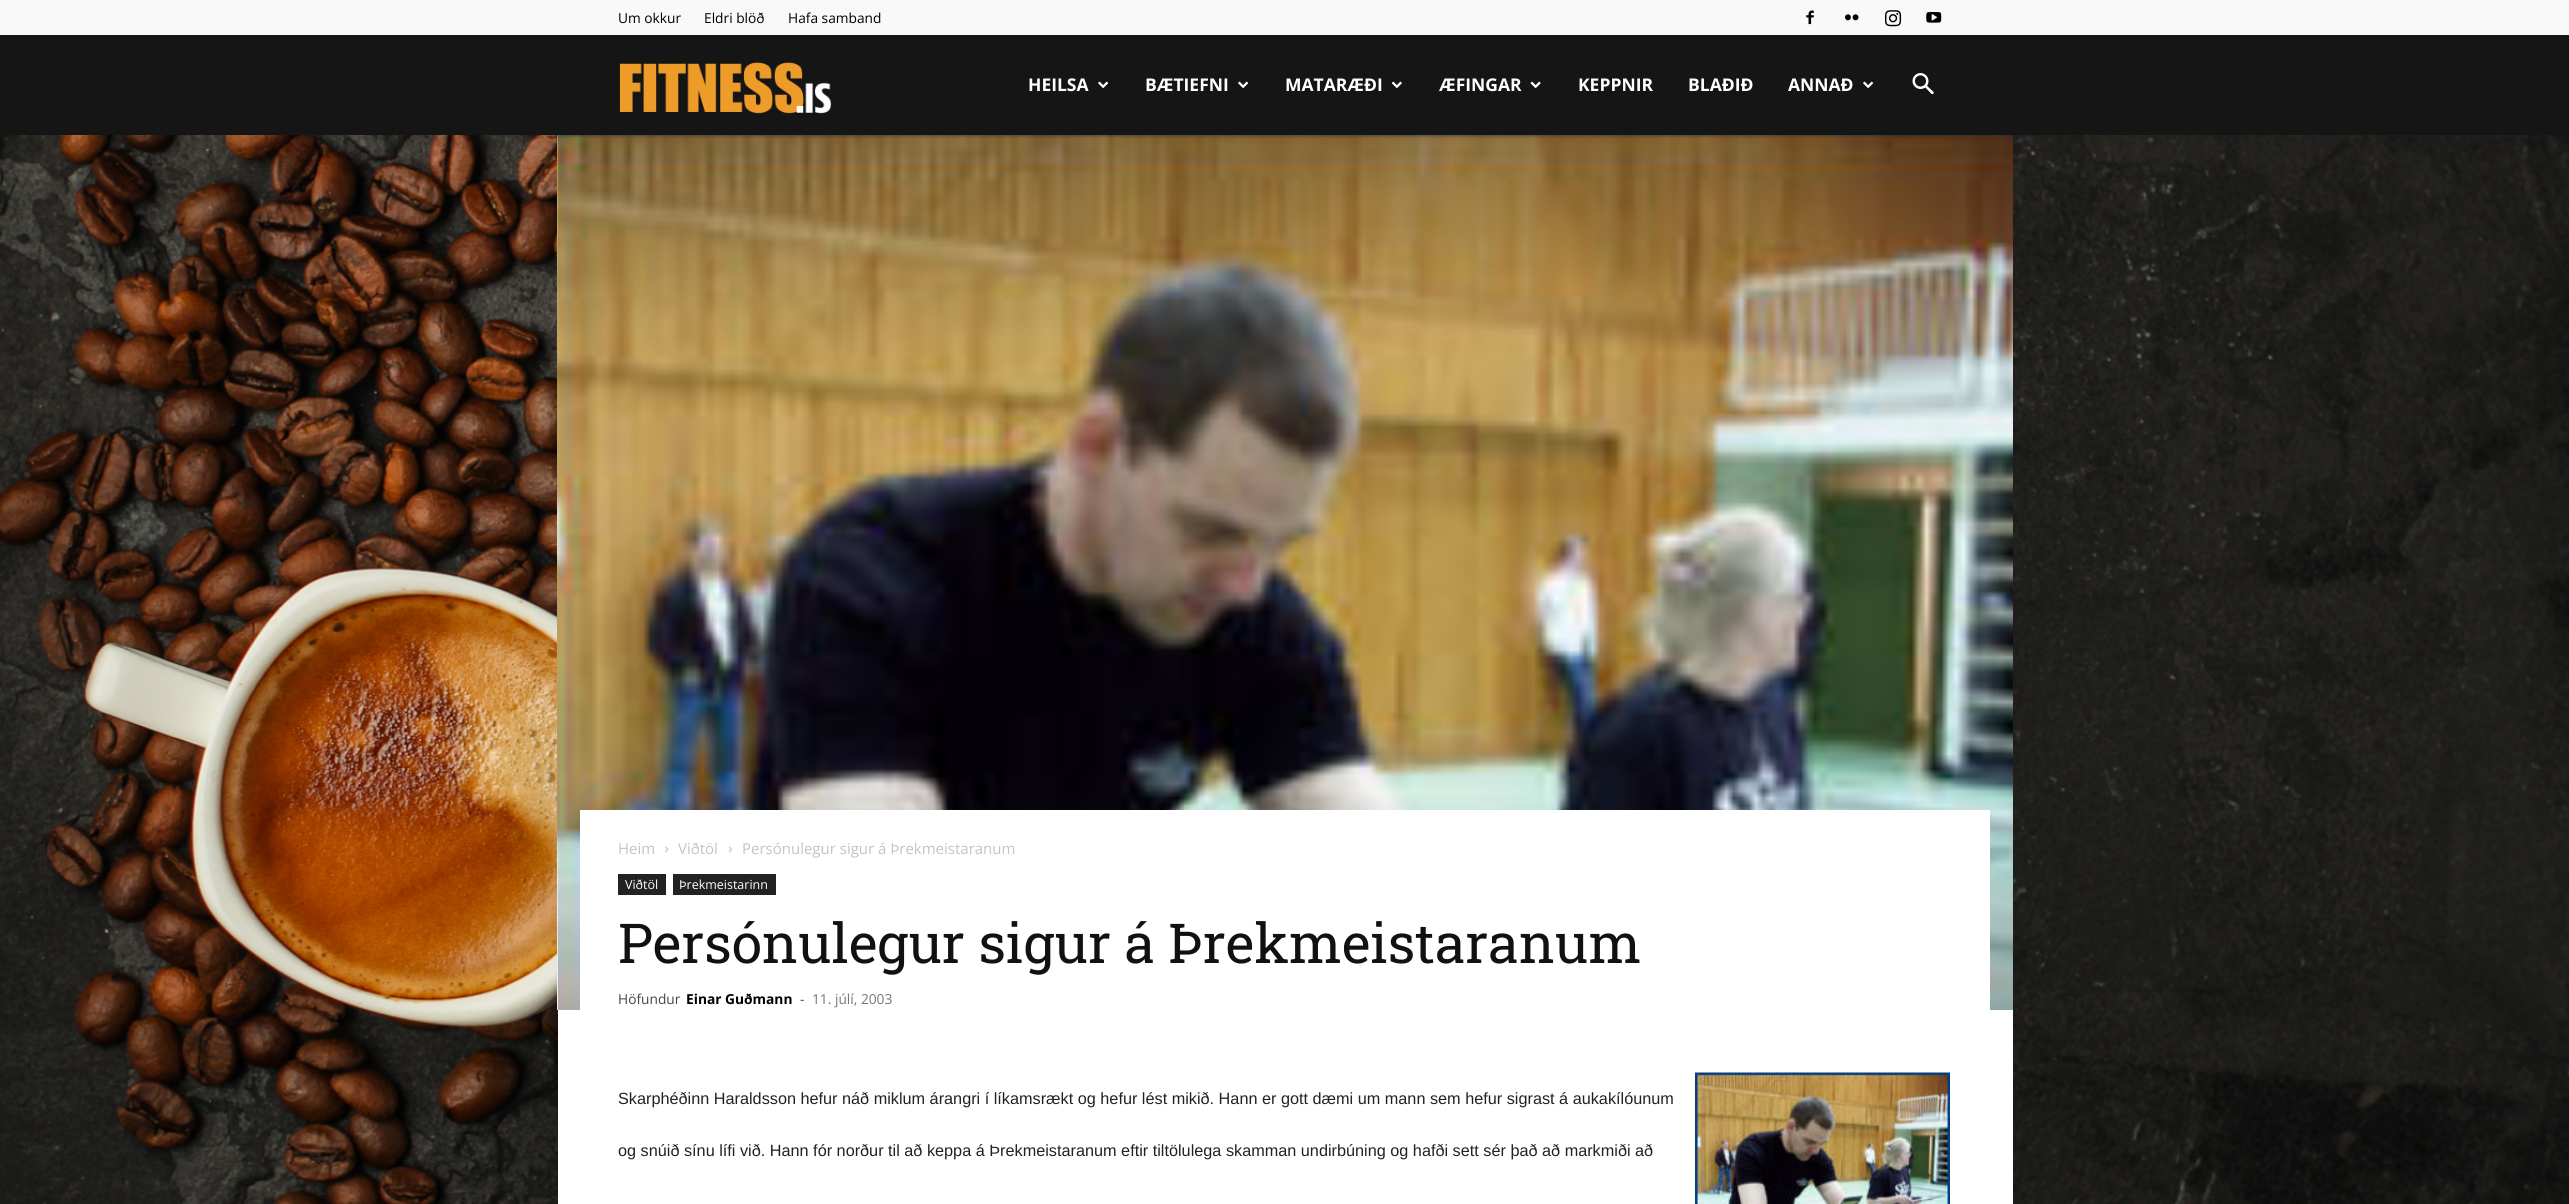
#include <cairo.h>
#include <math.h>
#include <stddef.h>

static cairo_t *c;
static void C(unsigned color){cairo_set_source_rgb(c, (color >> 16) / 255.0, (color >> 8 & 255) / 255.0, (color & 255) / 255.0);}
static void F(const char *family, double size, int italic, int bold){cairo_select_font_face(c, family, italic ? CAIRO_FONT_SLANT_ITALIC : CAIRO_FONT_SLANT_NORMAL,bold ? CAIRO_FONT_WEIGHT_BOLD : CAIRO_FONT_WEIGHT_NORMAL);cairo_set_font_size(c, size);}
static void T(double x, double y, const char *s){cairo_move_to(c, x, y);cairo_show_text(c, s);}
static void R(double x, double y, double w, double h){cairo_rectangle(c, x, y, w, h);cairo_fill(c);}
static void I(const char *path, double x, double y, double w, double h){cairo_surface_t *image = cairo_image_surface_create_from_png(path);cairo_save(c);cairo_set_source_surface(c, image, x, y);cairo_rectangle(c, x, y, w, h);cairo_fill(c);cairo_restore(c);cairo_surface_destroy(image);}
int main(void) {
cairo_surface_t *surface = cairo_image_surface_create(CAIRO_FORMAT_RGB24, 2569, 1204);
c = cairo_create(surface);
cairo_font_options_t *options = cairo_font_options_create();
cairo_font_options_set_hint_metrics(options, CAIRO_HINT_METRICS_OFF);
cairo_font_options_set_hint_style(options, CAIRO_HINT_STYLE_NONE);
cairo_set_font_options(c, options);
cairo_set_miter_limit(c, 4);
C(0xffffff);
cairo_paint(c);
C(0xf9f9f9);
R(0,0,2569,35);
F("Open Sans",13.75,0,0);
C(0x000000);
T(618,23,"Um okkur");
T(704,23,"Eldri blöð");
T(788,23,"Hafa samband");
I("1.png",1806,10,8,15);
I("2.png",1845,14,14,7);
I("3.png",1885,10,17,17);
I("4.png",1926,12,16,11);
C(0x151515);
R(0,35,2569,100);
I("5.png",619,62,213,52);
F("Open Sans",17.5,0,1);
C(0xffffff);
T(1028,91,"HEILSA");
I("6.png",1098,81,11,8);
T(1145,91,"BÆTIEFNI");
I("6.png",1238,81,11,8);
T(1285,91,"MATARÆÐI");
I("7.png",1391,81,11,8);
T(1439,91,"ÆFINGAR");
I("8.png",1530,81,11,8);
T(1578,91,"KEPPNIR");
T(1688,91,"BLAÐIÐ");
T(1788,91,"ANNAÐ");
I("6.png",1863,81,11,8);
I("9.png",1912,73,22,22);
I("14.png",0,135,2569,1069);
R(558,1010,1455,194);
I("10.png",557,135,1456,875);
R(580,810,1410,200);
F("Open Sans",15,0,0);
C(0xc3c3c3);
T(618,854,"Heim");
I("11.png",665,846,4,7);
T(678,854,"Viðtöl");
I("12.png",728,846,4,7);
T(742,854,"Persónulegur sigur á Þrekmeistaranum");
C(0x222222);
R(618,874,48,21);
F("Open Sans",12.5,0,0);
C(0xffffff);
T(625,889,"Viðtöl");
C(0x222222);
R(673,874,103,21);
C(0xffffff);
T(679,889,"Þrekmeistarinn");
F("Roboto Slab",55,0,0);
C(0x111111);
T(618,963,"Persónulegur sigur á Þrekmeistaranum");
F("Open Sans",13.75,0,0);
C(0x444444);
T(618,1004,"Höfundur");
F("Open Sans",13.75,0,1);
C(0x000000);
T(686,1004,"Einar Guðmann");
F("Open Sans",13.75,0,0);
C(0x444444);
T(800,1004,"-");
C(0x767676);
T(812,1004,"11. júlí, 2003");
F("Liberation Sans",16.25,0,0);
C(0x222222);
T(618,1104,"Skarphéðinn Haraldsson hefur náð miklum árangri í líkamsrækt og hefur lést mikið. Hann er gott dæmi um mann sem hefur sigrast á aukakílóunum");
I("13.png",1695,1072,255,132);
T(618,1156,"og snúið sínu lífi við. Hann fór norður til að keppa á Þrekmeistaranum eftir tiltölulega skamman undirbúning og hafði sett sér það að markmiði að");
cairo_surface_write_to_png(surface, "o.png");
cairo_font_options_destroy(options);
cairo_destroy(c);
cairo_surface_destroy(surface);
return 0;
}
